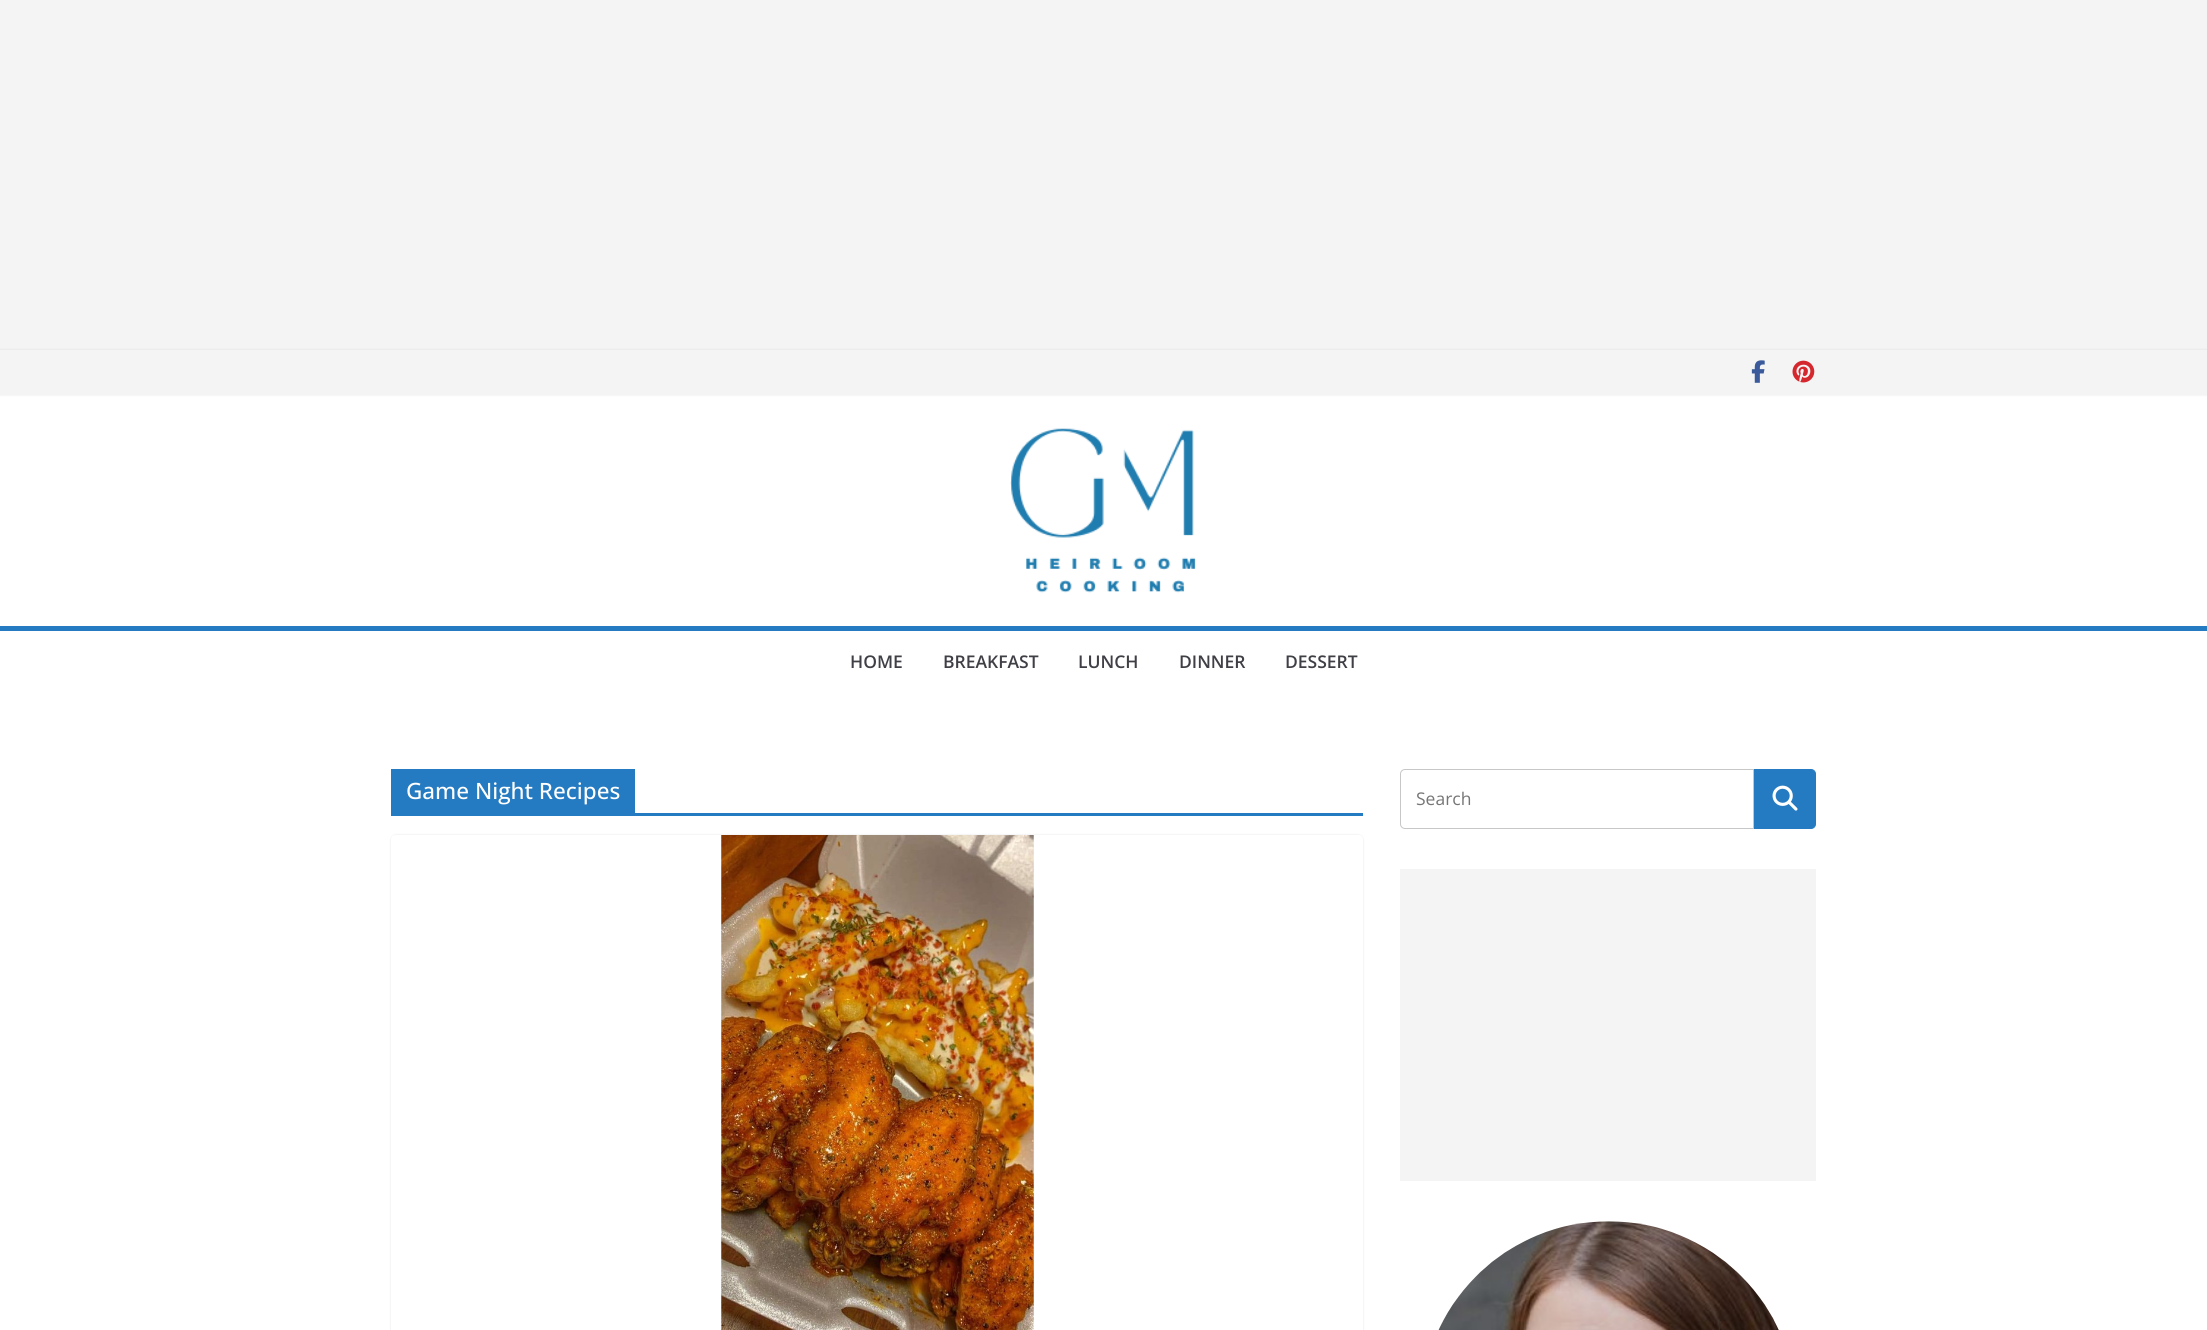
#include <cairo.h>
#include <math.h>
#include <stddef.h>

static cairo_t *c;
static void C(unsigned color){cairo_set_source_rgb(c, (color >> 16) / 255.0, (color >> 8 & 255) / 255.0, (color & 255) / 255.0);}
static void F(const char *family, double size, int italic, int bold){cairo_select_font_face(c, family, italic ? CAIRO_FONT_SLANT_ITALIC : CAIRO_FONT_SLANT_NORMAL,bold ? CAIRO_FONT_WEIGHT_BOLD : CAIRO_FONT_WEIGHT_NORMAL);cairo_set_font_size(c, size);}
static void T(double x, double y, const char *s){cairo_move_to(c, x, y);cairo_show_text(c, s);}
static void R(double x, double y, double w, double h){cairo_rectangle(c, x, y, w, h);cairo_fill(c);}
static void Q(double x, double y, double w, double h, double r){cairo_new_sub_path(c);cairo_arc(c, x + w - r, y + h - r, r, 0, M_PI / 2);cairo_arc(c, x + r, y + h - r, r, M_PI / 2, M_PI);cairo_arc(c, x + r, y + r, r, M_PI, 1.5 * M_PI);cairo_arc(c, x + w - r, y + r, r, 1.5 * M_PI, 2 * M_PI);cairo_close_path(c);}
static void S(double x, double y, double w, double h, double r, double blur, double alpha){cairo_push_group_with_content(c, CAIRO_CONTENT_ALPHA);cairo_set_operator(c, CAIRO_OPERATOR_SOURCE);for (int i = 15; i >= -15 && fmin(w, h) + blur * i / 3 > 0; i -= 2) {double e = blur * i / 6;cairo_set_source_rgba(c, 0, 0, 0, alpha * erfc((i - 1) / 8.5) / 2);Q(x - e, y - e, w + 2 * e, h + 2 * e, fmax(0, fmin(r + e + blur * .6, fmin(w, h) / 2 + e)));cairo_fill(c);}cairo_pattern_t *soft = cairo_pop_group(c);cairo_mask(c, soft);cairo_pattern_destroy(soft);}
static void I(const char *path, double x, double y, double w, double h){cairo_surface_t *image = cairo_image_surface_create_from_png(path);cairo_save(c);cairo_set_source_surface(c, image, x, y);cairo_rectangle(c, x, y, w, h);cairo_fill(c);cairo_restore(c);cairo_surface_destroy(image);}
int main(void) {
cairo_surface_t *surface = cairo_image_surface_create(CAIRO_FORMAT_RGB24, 2207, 1330);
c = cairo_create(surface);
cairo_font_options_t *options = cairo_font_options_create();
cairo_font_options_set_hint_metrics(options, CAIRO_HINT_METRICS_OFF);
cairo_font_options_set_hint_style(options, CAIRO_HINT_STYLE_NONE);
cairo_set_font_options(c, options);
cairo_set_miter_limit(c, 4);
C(0xffffff);
cairo_paint(c);
C(0xf4f4f5);
R(0,0,2207,350);
C(0x000000);
S(0,350,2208,45,0,1,.1);
C(0xf4f4f5);
R(0,350,2207,45);
I("1.png",1751,360,14,23);
I("2.png",1792,360,23,23);
I("3.png",1010,428,186,165);
C(0x257bc1);
R(0,626,2207,5);
F("Open Sans SemiBold",17.5,0,0);
C(0x3f3f46);
T(850,668,"HOME");
T(943,668,"BREAKFAST");
T(1078,668,"LUNCH");
T(1179,668,"DINNER");
T(1285,668,"DESSERT");
C(0x257bc1);
R(391,813,972,3);
R(391,769,244,44);
F("Open Sans Medium",22.5,0,0);
C(0xffffff);
T(406,799,"Game Night Recipes");
cairo_save(c);
cairo_set_fill_rule(c,CAIRO_FILL_RULE_EVEN_ODD);
cairo_new_path(c);
cairo_move_to(c,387,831);
cairo_line_to(c,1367,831);
cairo_line_to(c,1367,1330);
cairo_line_to(c,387,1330);
cairo_close_path(c);
cairo_move_to(c,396,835);
cairo_line_to(c,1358,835);
cairo_curve_to(c,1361,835,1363,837,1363,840);
cairo_line_to(c,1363,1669);
cairo_curve_to(c,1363,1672,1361,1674,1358,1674);
cairo_line_to(c,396,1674);
cairo_curve_to(c,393,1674,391,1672,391,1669);
cairo_line_to(c,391,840);
cairo_curve_to(c,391,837,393,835,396,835);
cairo_close_path(c);
cairo_clip(c);
C(0xe4e4e7);
S(391,835,972,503,5,1,1);
cairo_restore(c);
I("4.png",721,835,313,495);
cairo_new_path(c);
cairo_move_to(c,1405,769.5);
cairo_line_to(c,1753.5,769.5);
cairo_line_to(c,1753.5,828.5);
cairo_line_to(c,1405,828.5);
cairo_curve_to(c,1402.5,828.5,1400.5,826.5,1400.5,824);
cairo_line_to(c,1400.5,774);
cairo_curve_to(c,1400.5,771.5,1402.5,769.5,1405,769.5);
cairo_close_path(c);
C(0xc7c7c7);
cairo_set_line_width(c,1);
cairo_stroke(c);
F("Open Sans",17.5,0,0);
C(0x757575);
T(1416,805,"Search");
C(0x257bc1);
cairo_new_path(c);
cairo_move_to(c,1754.5,769.5);
cairo_line_to(c,1811,769.5);
cairo_curve_to(c,1813.5,769.5,1815.5,771.5,1815.5,774);
cairo_line_to(c,1815.5,824);
cairo_curve_to(c,1815.5,826.5,1813.5,828.5,1811,828.5);
cairo_line_to(c,1754.5,828.5);
cairo_close_path(c);
cairo_fill_preserve(c);
cairo_stroke(c);
I("5.png",1772,785,26,26);
C(0xf4f4f5);
R(1400,869,416,312);
I("6.png",1438,1221,341,109);
cairo_surface_write_to_png(surface, "o.png");
cairo_font_options_destroy(options);
cairo_destroy(c);
cairo_surface_destroy(surface);
return 0;
}
